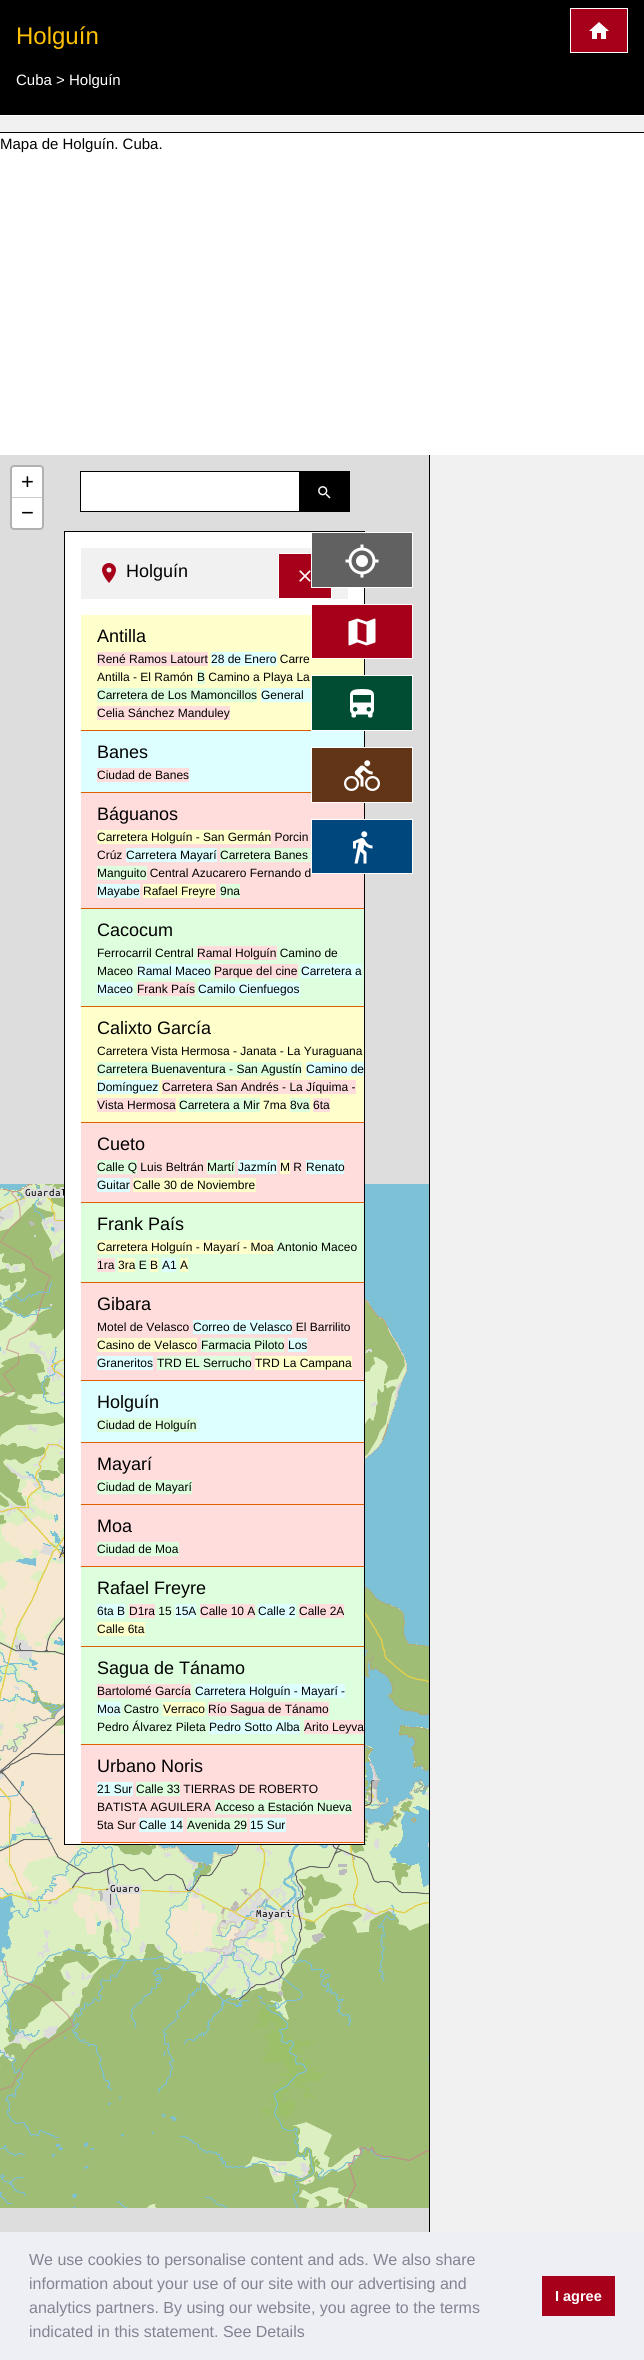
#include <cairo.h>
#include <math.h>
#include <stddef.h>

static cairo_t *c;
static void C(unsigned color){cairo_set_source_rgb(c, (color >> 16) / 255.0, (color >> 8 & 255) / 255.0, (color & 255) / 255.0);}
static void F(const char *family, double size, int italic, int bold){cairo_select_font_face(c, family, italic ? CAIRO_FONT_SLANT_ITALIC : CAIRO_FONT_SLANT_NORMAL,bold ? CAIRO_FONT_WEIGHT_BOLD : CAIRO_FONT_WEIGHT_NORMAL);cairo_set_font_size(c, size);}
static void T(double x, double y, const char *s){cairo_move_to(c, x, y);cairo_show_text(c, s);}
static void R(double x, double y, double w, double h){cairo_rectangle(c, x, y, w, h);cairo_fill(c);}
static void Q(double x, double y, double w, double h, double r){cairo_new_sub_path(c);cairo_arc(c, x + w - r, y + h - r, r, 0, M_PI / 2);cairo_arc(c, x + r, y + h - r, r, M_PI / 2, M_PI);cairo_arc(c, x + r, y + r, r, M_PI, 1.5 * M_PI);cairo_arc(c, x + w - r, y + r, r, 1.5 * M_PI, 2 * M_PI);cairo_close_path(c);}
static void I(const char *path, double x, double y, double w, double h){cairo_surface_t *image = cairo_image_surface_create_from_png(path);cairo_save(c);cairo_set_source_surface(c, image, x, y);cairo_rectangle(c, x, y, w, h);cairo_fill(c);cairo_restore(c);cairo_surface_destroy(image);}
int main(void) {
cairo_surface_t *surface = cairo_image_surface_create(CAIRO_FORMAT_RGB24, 644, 2360);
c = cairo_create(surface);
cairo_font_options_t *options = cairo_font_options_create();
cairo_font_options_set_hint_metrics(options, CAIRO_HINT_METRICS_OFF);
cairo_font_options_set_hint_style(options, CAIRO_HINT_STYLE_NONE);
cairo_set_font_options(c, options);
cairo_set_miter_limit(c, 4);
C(0xffffff);
cairo_paint(c);
C(0x000000);
R(0,0,644,115);
F("Liberation Sans",24,0,0);
C(0xffc107);
T(16,44,"Holguín");
C(0xa6001a);
cairo_rectangle(c,570.5,8.5,57,44);
cairo_fill_preserve(c);
C(0xffffff);
cairo_set_line_width(c,1);
cairo_stroke(c);
I("1.png",589,22,20,17);
F("Liberation Sans",15,0,0);
T(16,85,"Cuba > Holguín");
C(0xf1f1f1);
R(0,116,644,16);
C(0x000000);
R(0,132,644,1);
T(0,149,"Mapa de Holguín. Cuba.");
C(0xdddddd);
R(0,455,429,1777);
Q(11,466,32,63,3);
C(0xb1b1b1);
cairo_set_line_width(c,2);
cairo_stroke(c);
C(0xffffff);
cairo_new_path(c);
cairo_move_to(c,14,467);
cairo_line_to(c,40,467);
cairo_curve_to(c,41,467,42,468,42,469);
cairo_line_to(c,42,498);
cairo_line_to(c,12,498);
cairo_line_to(c,12,469);
cairo_curve_to(c,12,468,13,467,14,467);
cairo_close_path(c);
cairo_fill(c);
C(0xcccccc);
R(12,497,30,1);
F("Liberation Sans",22,0,0);
C(0x000000);
T(21,489,"+");
C(0xffffff);
cairo_new_path(c);
cairo_move_to(c,12,498);
cairo_line_to(c,42,498);
cairo_line_to(c,42,526);
cairo_curve_to(c,42,527,41,528,40,528);
cairo_line_to(c,14,528);
cairo_curve_to(c,13,528,12,527,12,526);
cairo_close_path(c);
cairo_fill(c);
C(0x000000);
T(21,520,"−");
I("2.png",0,1184,64,256);
I("3.png",365,1184,23,256);
I("4.png",388,1184,41,256);
I("5.png",0,1440,64,256);
I("6.png",365,1440,23,256);
I("7.png",388,1440,41,256);
I("8.png",0,1696,132,256);
I("9.png",132,1696,256,256);
I("10.png",388,1696,41,256);
I("11.png",0,1952,132,256);
I("12.png",132,1952,256,256);
I("13.png",388,1952,41,256);
C(0xffffff);
R(81,472,218,39);
C(0x000000);
R(299,471,51,41);
cairo_save(c);
cairo_rectangle(c,80,471,219,41);
cairo_clip(c);
cairo_rectangle(c,80.5,471.5,236,40);
cairo_set_line_width(c,1);
cairo_stroke(c);
cairo_restore(c);
I("14.png",318,486,13,13);
C(0xffffff);
cairo_rectangle(c,64.5,531.5,300,1313);
cairo_fill_preserve(c);
C(0x000000);
cairo_set_line_width(c,1);
cairo_stroke(c);
C(0xf1f1f1);
R(81,548,267,51);
C(0xa6001a);
cairo_rectangle(c,278.5,553.5,53,45);
cairo_fill_preserve(c);
C(0xffffff);
cairo_stroke(c);
C(0x616161);
cairo_rectangle(c,311.5,532.5,101,55);
cairo_fill_preserve(c);
C(0xffffff);
cairo_stroke(c);
I("15.png",345,544,34,34);
C(0xffffcc);
R(81,615,283,115);
C(0xa6001a);
cairo_rectangle(c,311.5,604.5,101,54);
cairo_fill_preserve(c);
C(0xffffff);
cairo_stroke(c);
I("16.png",348,618,28,28);
C(0x004d33);
cairo_rectangle(c,311.5,675.5,101,55);
cairo_fill_preserve(c);
C(0xffffff);
cairo_stroke(c);
I("17.png",350,689,24,29);
C(0xddffff);
R(81,731,283,61);
C(0xffdddd);
R(81,793,283,115);
C(0x633517);
cairo_rectangle(c,311.5,747.5,101,55);
cairo_fill_preserve(c);
C(0xffffff);
cairo_stroke(c);
I("18.png",344,760,36,31);
C(0x00477e);
cairo_rectangle(c,311.5,819.5,101,54);
cairo_fill_preserve(c);
C(0xffffff);
cairo_stroke(c);
I("19.png",353,831,20,33);
I("20.png",102,563,14,20);
F("Liberation Sans",18,0,0);
C(0x000000);
T(126,577,"Holguín");
I("21.png",299,570,12,12);
C(0xe06000);
R(81,730,230,1);
C(0x000000);
T(97,642,"Antilla");
C(0xffdddd);
R(97,652,111,14);
F("Liberation Sans",12,0,0);
C(0x000000);
T(97,663,"René Ramos Latourt");
C(0xddffff);
R(211,652,66,14);
C(0x000000);
T(211,663,"28 de Enero Carre");
T(97,681,"Antilla - El Ramón");
C(0xddffdd);
R(197,670,8,14);
C(0x000000);
T(197,681,"B Camino a Playa La");
C(0xddffdd);
R(97,688,160,14);
C(0x000000);
T(97,699,"Carretera de Los Mamoncillos");
C(0xddffff);
R(261,688,50,14);
C(0x000000);
T(261,699,"General");
C(0xffdddd);
R(97,706,133,14);
C(0x000000);
T(97,717,"Celia Sánchez Manduley");
C(0xe06000);
R(81,792,230,1);
F("Liberation Sans",18,0,0);
C(0x000000);
T(97,758,"Banes");
C(0xffdddd);
R(97,768,92,14);
F("Liberation Sans",12,0,0);
C(0x000000);
T(97,779,"Ciudad de Banes");
C(0xe06000);
R(81,908,283,1);
F("Liberation Sans",18,0,0);
C(0x000000);
T(97,820,"Báguanos");
C(0xffffcc);
R(97,830,174,14);
F("Liberation Sans",12,0,0);
C(0x000000);
T(97,841,"Carretera Holguín - San Germán Porcin");
T(97,859,"Crúz");
C(0xddffff);
R(126,848,91,14);
C(0x000000);
T(126,859,"Carretera Mayarí");
C(0xddffdd);
R(220,848,91,14);
C(0x000000);
T(220,859,"Carretera Banes");
C(0xddffdd);
R(97,866,50,14);
C(0x000000);
T(97,877,"Manguito Central Azucarero Fernando d");
C(0xddffff);
R(97,884,43,14);
C(0x000000);
T(97,895,"Mayabe");
C(0xffffcc);
R(143,884,73,14);
C(0x000000);
T(143,895,"Rafael Freyre");
C(0xddffdd);
R(220,884,20,14);
C(0x000000);
T(220,895,"9na");
C(0xddffdd);
R(81,909,283,97);
C(0xe06000);
R(81,1006,283,1);
F("Liberation Sans",18,0,0);
C(0x000000);
T(97,936,"Cacocum");
F("Liberation Sans",12,0,0);
T(97,957,"Ferrocarril Central");
C(0xffdddd);
R(197,946,80,14);
C(0x000000);
T(197,957,"Ramal Holguín Camino de");
T(97,975,"Maceo");
C(0xddffff);
R(137,964,74,14);
C(0x000000);
T(137,975,"Ramal Maceo");
C(0xffdddd);
R(214,964,84,14);
C(0x000000);
T(214,975,"Parque del cine");
C(0xddffff);
R(301,964,61,14);
C(0x000000);
T(301,975,"Carretera a");
C(0xddffff);
R(97,982,36,14);
C(0x000000);
T(97,993,"Maceo");
C(0xffdddd);
R(137,982,58,14);
C(0x000000);
T(137,993,"Frank País");
C(0xddffff);
R(198,982,102,14);
C(0x000000);
T(198,993,"Camilo Cienfuegos");
C(0xffffcc);
R(81,1007,283,115);
C(0xe06000);
R(81,1122,283,1);
F("Liberation Sans",18,0,0);
C(0x000000);
T(97,1034,"Calixto García");
F("Liberation Sans",12,0,0);
T(97,1055,"Carretera Vista Hermosa - Janata - La Yuraguana");
C(0xddffdd);
R(97,1062,205,14);
C(0x000000);
T(97,1073,"Carretera Buenaventura - San Agustín");
C(0xddffff);
R(306,1062,58,14);
C(0x000000);
T(306,1073,"Camino de");
C(0xddffff);
R(97,1080,62,14);
C(0x000000);
T(97,1091,"Domínguez");
C(0xffdddd);
R(162,1080,194,14);
C(0x000000);
T(162,1091,"Carretera San Andrés - La Jíquima -");
C(0xffdddd);
R(97,1098,79,14);
C(0x000000);
T(97,1109,"Vista Hermosa");
C(0xddffdd);
R(179,1098,81,14);
C(0x000000);
T(179,1109,"Carretera a Mir 7ma");
C(0xddffdd);
R(290,1098,20,14);
C(0x000000);
T(290,1109,"8va");
C(0xffdddd);
R(313,1098,17,14);
C(0x000000);
T(313,1109,"6ta");
C(0xffdddd);
R(81,1123,283,79);
C(0xe06000);
R(81,1202,283,1);
F("Liberation Sans",18,0,0);
C(0x000000);
T(97,1150,"Cueto");
C(0xddffdd);
R(97,1160,40,14);
F("Liberation Sans",12,0,0);
C(0x000000);
T(97,1171,"Calle Q Luis Beltrán");
C(0xddffdd);
R(207,1160,28,14);
C(0x000000);
T(207,1171,"Martí");
C(0xddffff);
R(238,1160,39,14);
C(0x000000);
T(238,1171,"Jazmín");
C(0xffffcc);
R(280,1160,10,14);
C(0x000000);
T(280,1171,"M R");
C(0xddffff);
R(306,1160,38,14);
C(0x000000);
T(306,1171,"Renato");
C(0xddffff);
R(97,1178,33,14);
C(0x000000);
T(97,1189,"Guitar");
C(0xffffcc);
R(133,1178,123,14);
C(0x000000);
T(133,1189,"Calle 30 de Noviembre");
C(0xddffdd);
R(81,1203,283,79);
C(0xe06000);
R(81,1282,283,1);
F("Liberation Sans",18,0,0);
C(0x000000);
T(97,1230,"Frank País");
C(0xffffcc);
R(97,1240,177,14);
F("Liberation Sans",12,0,0);
C(0x000000);
T(97,1251,"Carretera Holguín - Mayarí - Moa Antonio Maceo");
C(0xffdddd);
R(97,1258,18,14);
C(0x000000);
T(97,1269,"1ra");
C(0xffffcc);
R(118,1258,17,14);
C(0x000000);
T(118,1269,"3ra E");
C(0xffffcc);
R(150,1258,8,14);
C(0x000000);
T(150,1269,"B");
C(0xddffff);
R(162,1258,14,14);
C(0x000000);
T(162,1269,"A1");
C(0xffffcc);
R(180,1258,8,14);
C(0x000000);
T(180,1269,"A");
C(0xffdddd);
R(81,1283,283,97);
C(0xe06000);
R(81,1380,283,1);
F("Liberation Sans",18,0,0);
C(0x000000);
T(97,1310,"Gibara");
F("Liberation Sans",12,0,0);
T(97,1331,"Motel de Velasco");
C(0xddffff);
R(193,1320,99,14);
C(0x000000);
T(193,1331,"Correo de Velasco El Barrilito");
C(0xffffcc);
R(97,1338,100,14);
C(0x000000);
T(97,1349,"Casino de Velasco");
C(0xddffdd);
R(201,1338,83,14);
C(0x000000);
T(201,1349,"Farmacia Piloto");
C(0xddffff);
R(288,1338,19,14);
C(0x000000);
T(288,1349,"Los");
C(0xddffff);
R(97,1356,56,14);
C(0x000000);
T(97,1367,"Graneritos");
C(0xddffdd);
R(157,1356,94,14);
C(0x000000);
T(157,1367,"TRD EL Serrucho");
C(0xffffcc);
R(255,1356,97,14);
C(0x000000);
T(255,1367,"TRD La Campana");
C(0xddffff);
R(81,1381,283,61);
C(0xe06000);
R(81,1442,283,1);
F("Liberation Sans",18,0,0);
C(0x000000);
T(97,1408,"Holguín");
C(0xddffdd);
R(97,1418,100,14);
F("Liberation Sans",12,0,0);
C(0x000000);
T(97,1429,"Ciudad de Holguín");
C(0xffdddd);
R(81,1443,283,61);
C(0xe06000);
R(81,1504,283,1);
F("Liberation Sans",18,0,0);
C(0x000000);
T(97,1470,"Mayarí");
C(0xddffdd);
R(97,1480,95,14);
F("Liberation Sans",12,0,0);
C(0x000000);
T(97,1491,"Ciudad de Mayarí");
C(0xffdddd);
R(81,1505,283,61);
C(0xe06000);
R(81,1566,283,1);
F("Liberation Sans",18,0,0);
C(0x000000);
T(97,1532,"Moa");
C(0xddffdd);
R(97,1542,82,14);
F("Liberation Sans",12,0,0);
C(0x000000);
T(97,1553,"Ciudad de Moa");
C(0xddffdd);
R(81,1567,283,79);
C(0xe06000);
R(81,1646,283,1);
F("Liberation Sans",18,0,0);
C(0x000000);
T(97,1594,"Rafael Freyre");
C(0xddffff);
R(97,1604,28,14);
F("Liberation Sans",12,0,0);
C(0x000000);
T(97,1615,"6ta B");
C(0xffdddd);
R(129,1604,26,14);
C(0x000000);
T(129,1615,"D1ra 15");
C(0xddffff);
R(175,1604,21,14);
C(0x000000);
T(175,1615,"15A");
C(0xffdddd);
R(200,1604,55,14);
C(0x000000);
T(200,1615,"Calle 10 A");
C(0xddffff);
R(258,1604,38,14);
C(0x000000);
T(258,1615,"Calle 2");
C(0xffdddd);
R(299,1604,45,14);
C(0x000000);
T(299,1615,"Calle 2A");
C(0xffffcc);
R(97,1622,48,14);
C(0x000000);
T(97,1633,"Calle 6ta");
C(0xddffdd);
R(81,1647,283,97);
C(0xe06000);
R(81,1744,283,1);
F("Liberation Sans",18,0,0);
C(0x000000);
T(97,1674,"Sagua de Tánamo");
C(0xffdddd);
R(97,1684,94,14);
F("Liberation Sans",12,0,0);
C(0x000000);
T(97,1695,"Bartolomé García");
C(0xddffff);
R(195,1684,150,14);
C(0x000000);
T(195,1695,"Carretera Holguín - Mayarí -");
C(0xddffff);
R(97,1702,24,14);
C(0x000000);
T(97,1713,"Moa Castro");
C(0xffffcc);
R(163,1702,42,14);
C(0x000000);
T(163,1713,"Verraco");
C(0xffdddd);
R(208,1702,121,14);
C(0x000000);
T(208,1713,"Río Sagua de Tánamo");
T(97,1731,"Pedro Álvarez Pileta");
C(0xddffff);
R(209,1720,91,14);
C(0x000000);
T(209,1731,"Pedro Sotto Alba");
C(0xffdddd);
R(304,1720,60,14);
C(0x000000);
T(304,1731,"Arito Leyva");
C(0xffdddd);
R(81,1745,283,97);
C(0xe06000);
R(81,1842,283,1);
F("Liberation Sans",18,0,0);
C(0x000000);
T(97,1772,"Urbano Noris");
C(0xddffff);
R(97,1782,36,14);
F("Liberation Sans",12,0,0);
C(0x000000);
T(97,1793,"21 Sur");
C(0xddffdd);
R(136,1782,44,14);
C(0x000000);
T(136,1793,"Calle 33 TIERRAS DE ROBERTO");
T(97,1811,"BATISTA AGUILERA");
C(0xddffdd);
R(215,1800,137,14);
C(0x000000);
T(215,1811,"Acceso a Estación Nueva");
T(97,1829,"5ta Sur");
C(0xddffff);
R(139,1818,44,14);
C(0x000000);
T(139,1829,"Calle 14");
C(0xddffdd);
R(187,1818,60,14);
C(0x000000);
T(187,1829,"Avenida 29");
C(0xddffff);
R(250,1818,36,14);
C(0x000000);
T(250,1829,"15 Sur");
C(0xf1f1f1);
R(430,455,214,1777);
C(0x000000);
R(429,455,1,1777);
C(0xedeff5);
R(0,2232,644,128);
F("Liberation Sans",16,0,0);
C(0x838391);
T(29,2265,"We use cookies to personalise content and ads. We also share");
T(29,2289,"information about your use of our site with our advertising and");
T(29,2313,"analytics partners. By using our website, you agree to the terms");
T(29,2337,"indicated in this statement. See Details");
C(0xa6001a);
R(542,2276,73,40);
F("Liberation Sans",14.5,0,1);
C(0xffffff);
T(555,2301,"I agree");
cairo_surface_write_to_png(surface, "o.png");
cairo_font_options_destroy(options);
cairo_destroy(c);
cairo_surface_destroy(surface);
return 0;
}
